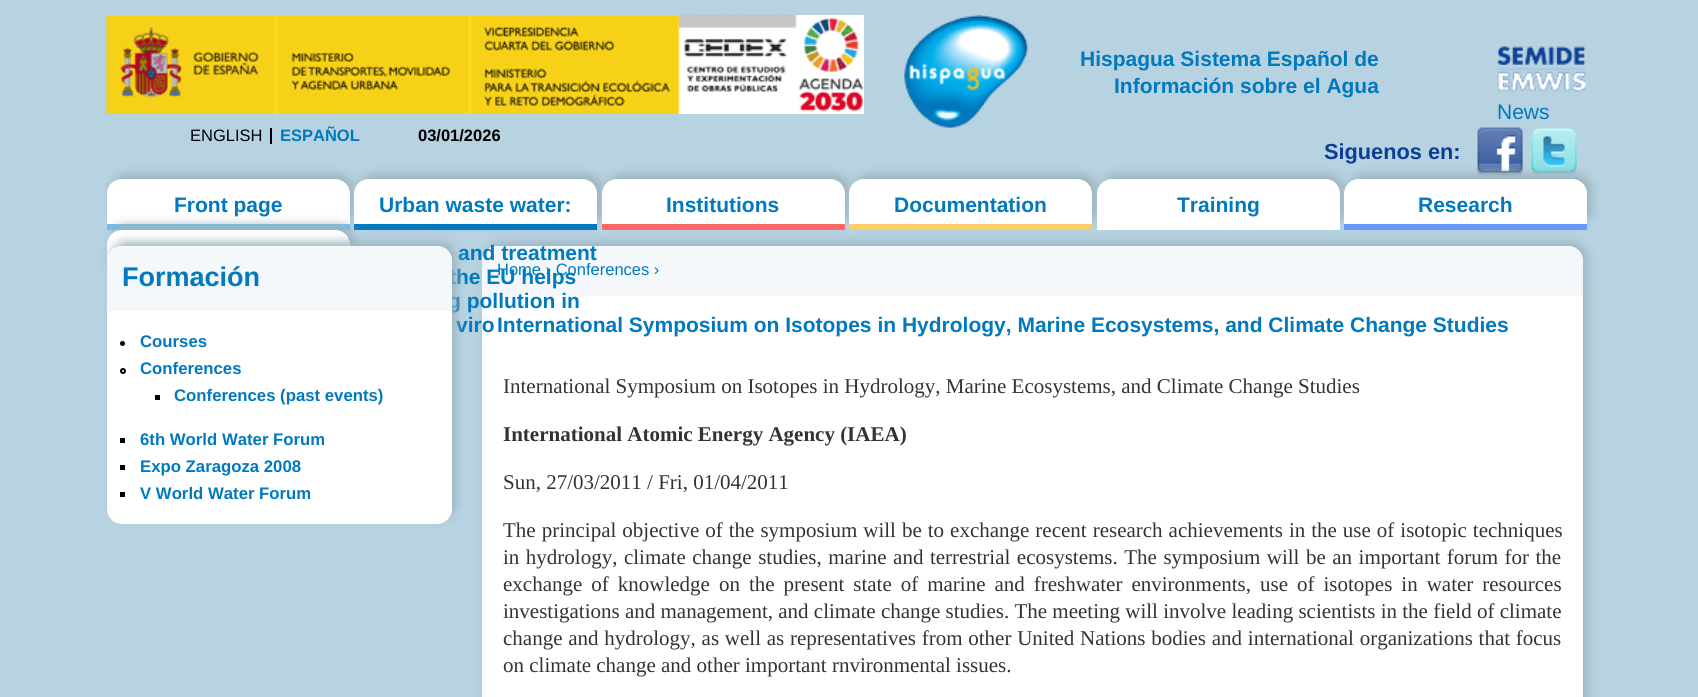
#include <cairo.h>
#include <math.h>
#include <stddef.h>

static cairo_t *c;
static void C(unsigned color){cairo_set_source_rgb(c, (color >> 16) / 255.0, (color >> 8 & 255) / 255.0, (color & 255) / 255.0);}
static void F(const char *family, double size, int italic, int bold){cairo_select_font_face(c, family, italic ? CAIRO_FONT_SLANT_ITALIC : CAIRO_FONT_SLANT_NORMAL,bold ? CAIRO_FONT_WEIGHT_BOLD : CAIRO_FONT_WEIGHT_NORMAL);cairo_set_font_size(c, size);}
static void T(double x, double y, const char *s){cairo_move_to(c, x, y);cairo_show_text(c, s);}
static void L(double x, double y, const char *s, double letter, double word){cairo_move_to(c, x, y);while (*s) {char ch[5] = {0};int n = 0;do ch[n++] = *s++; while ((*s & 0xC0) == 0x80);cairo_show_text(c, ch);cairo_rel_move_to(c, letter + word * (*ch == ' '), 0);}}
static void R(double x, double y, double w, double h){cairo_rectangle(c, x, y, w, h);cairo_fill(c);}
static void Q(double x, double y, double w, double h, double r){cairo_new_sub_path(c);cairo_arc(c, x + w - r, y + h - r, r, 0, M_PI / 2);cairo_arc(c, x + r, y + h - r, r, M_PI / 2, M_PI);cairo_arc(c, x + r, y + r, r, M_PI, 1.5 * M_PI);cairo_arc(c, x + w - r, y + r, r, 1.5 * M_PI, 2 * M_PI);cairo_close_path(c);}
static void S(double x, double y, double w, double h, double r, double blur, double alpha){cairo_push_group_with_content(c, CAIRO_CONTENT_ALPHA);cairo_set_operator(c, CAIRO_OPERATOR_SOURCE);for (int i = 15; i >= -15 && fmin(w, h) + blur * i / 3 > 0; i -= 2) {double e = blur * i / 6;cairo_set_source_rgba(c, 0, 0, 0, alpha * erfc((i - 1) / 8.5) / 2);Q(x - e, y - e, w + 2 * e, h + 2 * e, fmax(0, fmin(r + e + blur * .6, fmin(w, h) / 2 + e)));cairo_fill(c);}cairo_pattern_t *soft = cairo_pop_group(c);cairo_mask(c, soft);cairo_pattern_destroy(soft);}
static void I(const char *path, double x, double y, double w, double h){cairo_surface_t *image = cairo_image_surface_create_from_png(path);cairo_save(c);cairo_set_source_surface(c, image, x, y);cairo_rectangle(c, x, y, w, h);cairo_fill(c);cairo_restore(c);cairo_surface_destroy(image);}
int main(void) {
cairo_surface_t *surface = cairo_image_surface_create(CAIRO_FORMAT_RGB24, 1698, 697);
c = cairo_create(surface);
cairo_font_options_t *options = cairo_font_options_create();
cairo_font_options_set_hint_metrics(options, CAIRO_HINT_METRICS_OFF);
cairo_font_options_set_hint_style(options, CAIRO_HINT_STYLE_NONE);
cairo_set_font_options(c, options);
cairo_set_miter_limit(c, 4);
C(0xb7d3e1);
cairo_paint(c);
I("1.png",106,15,758,99);
I("2.png",904,15,124,113);
F("Liberation Sans",21,0,1);
C(0x0079be);
T(1080,66,"Hispagua Sistema Español de");
T(1114,93,"Información sobre el Agua");
I("3.png",1497,46,89,46);
F("Liberation Sans",21,0,0);
T(1497,119,"News");
C(0x000000);
R(270,128,2,16);
F("Liberation Sans",16.5,0,0);
T(190,141,"ENGLISH");
F("Liberation Sans",16.5,0,1);
C(0x0079be);
T(280,141,"ESPAÑOL");
C(0x000000);
T(418,141,"03/01/2026");
F("Liberation Sans",21.75,0,1);
C(0x0d3e95);
T(1324,159,"Siguenos en:");
I("4.png",1476,127,48,49);
I("5.png",1531,127,46,48);
C(0x9cb3bf);
S(111,174,243,51,15,5,1);
C(0xffffff);
cairo_new_path(c);
cairo_move_to(c,122,179);
cairo_line_to(c,335,179);
cairo_curve_to(c,343.5,179,350,185.5,350,194);
cairo_line_to(c,350,230);
cairo_line_to(c,107,230);
cairo_line_to(c,107,194);
cairo_curve_to(c,107,185.5,113.5,179,122,179);
cairo_close_path(c);
cairo_fill(c);
C(0x72bceb);
R(107,224,243,6);
F("Liberation Sans",21,0,1);
C(0x0079be);
T(174,212,"Front page");
C(0x9cb3bf);
S(359,174,243,51,15,5,1);
S(486,242,1101,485,15,5,1);
C(0xffffff);
cairo_new_path(c);
cairo_move_to(c,369,179);
cairo_line_to(c,582,179);
cairo_curve_to(c,590.5,179,597,185.5,597,194);
cairo_line_to(c,597,230);
cairo_line_to(c,354,230);
cairo_line_to(c,354,194);
cairo_curve_to(c,354,185.5,360.5,179,369,179);
cairo_close_path(c);
cairo_fill(c);
C(0x0079be);
R(354,224,243,6);
T(379,212,"Urban waste water:");
C(0xffffff);
Q(482,246,1101,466,15);
cairo_fill(c);
C(0xf4f8fb);
cairo_new_path(c);
cairo_move_to(c,497,246);
cairo_line_to(c,1568,246);
cairo_curve_to(c,1576.5,246,1583,252.5,1583,261);
cairo_line_to(c,1583,296);
cairo_line_to(c,482,296);
cairo_line_to(c,482,261);
cairo_curve_to(c,482,252.5,488.5,246,497,246);
cairo_close_path(c);
cairo_fill(c);
C(0x0079be);
T(458,260,"and treatment");
F("Liberation Sans",16.5,0,0);
T(497,275,"Home › Conferences ›");
F("Liberation Sans",21,0,1);
T(449,284,"the EU helps");
T(448,308,"g pollution in");
T(456,332,"viro");
C(0x9cb3bf);
S(606,174,243,51,15,5,1);
C(0xffffff);
cairo_new_path(c);
cairo_move_to(c,617,179);
cairo_line_to(c,830,179);
cairo_curve_to(c,838.5,179,845,185.5,845,194);
cairo_line_to(c,845,230);
cairo_line_to(c,602,230);
cairo_line_to(c,602,194);
cairo_curve_to(c,602,185.5,608.5,179,617,179);
cairo_close_path(c);
cairo_fill(c);
C(0xff6766);
R(602,224,243,6);
C(0x0079be);
T(666,212,"Institutions");
C(0x9cb3bf);
S(854,174,243,51,15,5,1);
C(0xffffff);
cairo_new_path(c);
cairo_move_to(c,864,179);
cairo_line_to(c,1077,179);
cairo_curve_to(c,1085.5,179,1092,185.5,1092,194);
cairo_line_to(c,1092,230);
cairo_line_to(c,849,230);
cairo_line_to(c,849,194);
cairo_curve_to(c,849,185.5,855.5,179,864,179);
cairo_close_path(c);
cairo_fill(c);
C(0xffcc67);
R(849,224,243,6);
C(0x0079be);
T(894,212,"Documentation");
C(0x9cb3bf);
S(1101,174,243,51,15,5,1);
C(0xffffff);
cairo_new_path(c);
cairo_move_to(c,1112,179);
cairo_line_to(c,1325,179);
cairo_curve_to(c,1333.5,179,1340,185.5,1340,194);
cairo_line_to(c,1340,230);
cairo_line_to(c,1097,230);
cairo_line_to(c,1097,194);
cairo_curve_to(c,1097,185.5,1103.5,179,1112,179);
cairo_close_path(c);
cairo_fill(c);
C(0x0079be);
T(1177,212,"Training");
C(0x9cb3bf);
S(1349,174,243,51,15,5,1);
C(0xffffff);
cairo_new_path(c);
cairo_move_to(c,1359,179);
cairo_line_to(c,1572,179);
cairo_curve_to(c,1580.5,179,1587,185.5,1587,194);
cairo_line_to(c,1587,230);
cairo_line_to(c,1344,230);
cairo_line_to(c,1344,194);
cairo_curve_to(c,1344,185.5,1350.5,179,1359,179);
cairo_close_path(c);
cairo_fill(c);
C(0x6599fe);
R(1344,224,243,6);
C(0x0079be);
T(1418,212,"Research");
C(0x9cb3bf);
S(111,225,243,51,15,5,1);
C(0xffffff);
cairo_new_path(c);
cairo_move_to(c,122,230);
cairo_line_to(c,335,230);
cairo_curve_to(c,343.5,230,350,236.5,350,245);
cairo_line_to(c,350,281);
cairo_line_to(c,107,281);
cairo_line_to(c,107,245);
cairo_curve_to(c,107,236.5,113.5,230,122,230);
cairo_close_path(c);
cairo_fill(c);
C(0x9cb3bf);
S(111,242,345,277,15,5,1);
C(0xffffff);
Q(107,246,345,278,15);
cairo_fill(c);
C(0xf4f8fb);
cairo_new_path(c);
cairo_move_to(c,122,246);
cairo_line_to(c,437,246);
cairo_curve_to(c,445.5,246,452,252.5,452,261);
cairo_line_to(c,452,311);
cairo_line_to(c,107,311);
cairo_line_to(c,107,261);
cairo_curve_to(c,107,252.5,113.5,246,122,246);
cairo_close_path(c);
cairo_fill(c);
F("Liberation Sans",27,0,1);
C(0x0079be);
T(122,286,"Formación");
C(0x000000);
cairo_new_path(c);
cairo_arc(c,122.5,343.5,2.5,0,2 * M_PI);
cairo_fill(c);
F("Liberation Sans",16.75,0,1);
C(0x0079be);
T(140,347,"Courses");
cairo_new_path(c);
cairo_arc(c,123,371,2,0,2 * M_PI);
C(0x000000);
cairo_stroke(c);
C(0x0079be);
T(140,374,"Conferences");
C(0x000000);
R(155,395,5,5);
C(0x0079be);
T(174,401,"Conferences (past events)");
C(0x000000);
R(120,438,5,5);
C(0x0079be);
T(140,445,"6th World Water Forum");
C(0x000000);
R(120,465,5,5);
C(0x0079be);
T(140,472,"Expo Zaragoza 2008");
C(0x000000);
R(120,492,5,5);
C(0x0079be);
T(140,499,"V World Water Forum");
F("Liberation Sans",21,0,1);
T(497,332,"International Symposium on Isotopes in Hydrology, Marine Ecosystems, and Climate Change Studies");
F("Liberation Serif",21,0,0);
C(0x333333);
T(503,393,"International Symposium on Isotopes in Hydrology, Marine Ecosystems, and Climate Change Studies");
F("Liberation Serif",21,0,1);
T(503,441,"International Atomic Energy Agency (IAEA)");
F("Liberation Serif",21,0,0);
T(503,489,"Sun, 27/03/2011 / Fri, 01/04/2011");
L(503,537,"The principal objective of the symposium will be to exchange recent research achievements in the use of isotopic techniques",0,.75);
L(503,564,"in hydrology, climate change studies, marine and terrestrial ecosystems. The symposium will be an important forum for the",0,1.25);
L(503,591,"exchange of knowledge on the present state of marine and freshwater environments, use of isotopes in water resources",0,3.75);
T(503,618,"investigations and management, and climate change studies. The meeting will involve leading scientists in the field of climate");
L(503,645,"change and hydrology, as well as representatives from other United Nations bodies and international organizations that focus",0,.5);
T(503,672,"on climate change and other important rnvironmental issues.");
cairo_surface_write_to_png(surface, "o.png");
cairo_font_options_destroy(options);
cairo_destroy(c);
cairo_surface_destroy(surface);
return 0;
}
